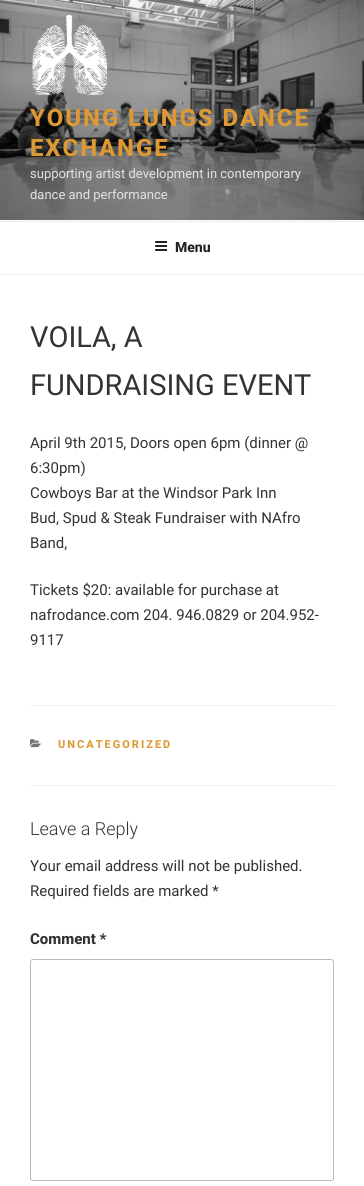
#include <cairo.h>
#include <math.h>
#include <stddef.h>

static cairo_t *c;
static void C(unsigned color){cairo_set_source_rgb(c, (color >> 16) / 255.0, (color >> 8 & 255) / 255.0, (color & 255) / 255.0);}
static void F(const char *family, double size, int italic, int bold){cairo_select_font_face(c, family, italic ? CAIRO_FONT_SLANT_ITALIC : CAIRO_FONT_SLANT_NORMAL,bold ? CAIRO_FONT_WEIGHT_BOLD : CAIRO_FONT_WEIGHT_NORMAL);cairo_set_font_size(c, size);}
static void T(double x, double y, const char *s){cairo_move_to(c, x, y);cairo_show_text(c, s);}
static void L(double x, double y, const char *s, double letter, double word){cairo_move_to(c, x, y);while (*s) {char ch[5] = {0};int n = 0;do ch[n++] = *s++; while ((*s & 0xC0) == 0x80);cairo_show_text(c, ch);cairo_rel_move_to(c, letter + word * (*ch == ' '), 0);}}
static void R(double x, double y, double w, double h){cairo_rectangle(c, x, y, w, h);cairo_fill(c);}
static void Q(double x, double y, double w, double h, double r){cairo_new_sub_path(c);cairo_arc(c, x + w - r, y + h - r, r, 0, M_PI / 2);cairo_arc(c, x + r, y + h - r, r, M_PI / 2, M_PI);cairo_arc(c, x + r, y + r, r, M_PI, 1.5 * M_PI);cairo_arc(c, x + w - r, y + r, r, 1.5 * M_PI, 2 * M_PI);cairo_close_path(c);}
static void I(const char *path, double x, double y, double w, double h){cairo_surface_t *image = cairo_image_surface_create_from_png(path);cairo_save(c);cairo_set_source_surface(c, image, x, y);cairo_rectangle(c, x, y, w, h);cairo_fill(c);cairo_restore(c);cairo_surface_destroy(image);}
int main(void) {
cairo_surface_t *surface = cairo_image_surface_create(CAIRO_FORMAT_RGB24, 364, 1186);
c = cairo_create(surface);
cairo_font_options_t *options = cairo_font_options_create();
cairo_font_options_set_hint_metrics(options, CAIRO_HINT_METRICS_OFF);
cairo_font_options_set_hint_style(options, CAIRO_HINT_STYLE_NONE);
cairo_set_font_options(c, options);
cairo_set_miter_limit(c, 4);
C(0xffffff);
cairo_paint(c);
C(0xfafafa);
R(0,220,364,1);
I("1.png",0,0,364,220);
I("2.png",32,15,76,80);
F("Roboto ExtraBold",24,0,0);
C(0xdd9933);
L(30,126,"YOUNG LUNGS DANCE",1.9,0);
L(30,156,"EXCHANGE",1.9,0);
F("Roboto",13,0,0);
C(0xe3e3e3);
T(30,178,"supporting artist development in contemporary");
T(30,199,"dance and performance");
C(0xeeeeee);
R(0,221,364,1);
R(0,274,364,1);
I("3.png",155,241,13,10);
F("Roboto ExtraBold",14,0,0);
C(0x222222);
T(175,252,"Menu");
F("Roboto",29,0,0);
C(0x333333);
T(30,347,"VOILA, A");
T(30,395,"FUNDRAISING EVENT");
F("Roboto",15,0,0);
T(30,448,"April 9th 2015, Doors open 6pm (dinner @");
T(30,473,"6:30pm)");
T(30,498,"Cowboys Bar at the Windsor Park Inn");
T(30,523,"Bud, Spud & Steak Fundraiser with NAfro");
T(30,548,"Band,");
T(30,595,"Tickets $20: available for purchase at");
T(30,620,"nafrodance.com 204. 946.0829 or 204.952-");
T(30,645,"9117");
C(0xeeeeee);
R(30,705,304,1);
R(30,785,304,1);
I("4.png",30,739,11,9);
F("Roboto ExtraBold",11,0,0);
C(0xdd9933);
L(58,748,"UNCATEGORIZED",2,0);
F("Roboto Light",18,0,0);
C(0x333333);
T(30,835,"Leave a Reply");
F("Roboto",15,0,0);
T(30,871,"Your email address will not be published.");
T(30,896,"Required fields are marked *");
F("Roboto ExtraBold",15,0,0);
T(30,944,"Comment *");
Q(30.5,959.5,303,221,2.5);
C(0xbbbbbb);
cairo_set_line_width(c,1);
cairo_stroke(c);
cairo_surface_write_to_png(surface, "o.png");
cairo_font_options_destroy(options);
cairo_destroy(c);
cairo_surface_destroy(surface);
return 0;
}
